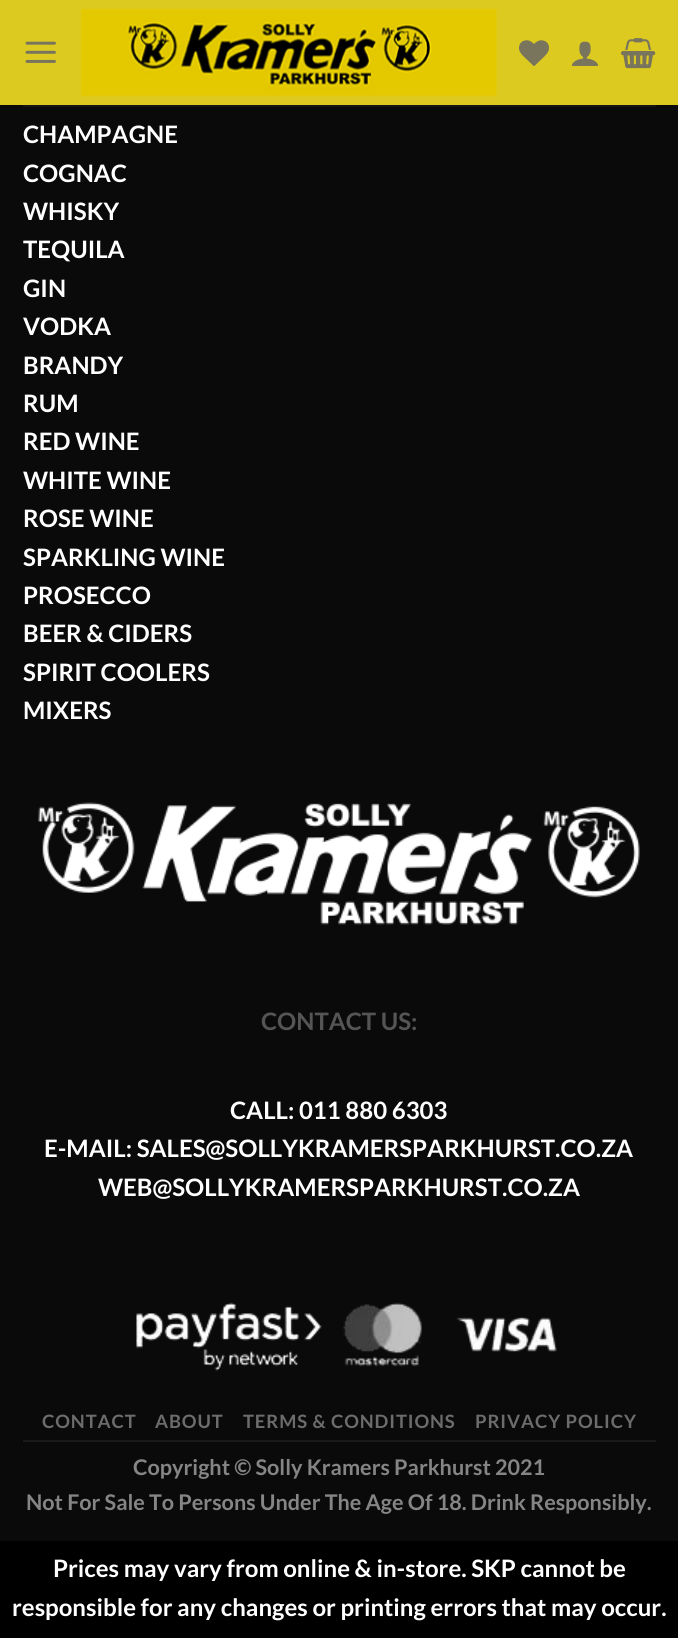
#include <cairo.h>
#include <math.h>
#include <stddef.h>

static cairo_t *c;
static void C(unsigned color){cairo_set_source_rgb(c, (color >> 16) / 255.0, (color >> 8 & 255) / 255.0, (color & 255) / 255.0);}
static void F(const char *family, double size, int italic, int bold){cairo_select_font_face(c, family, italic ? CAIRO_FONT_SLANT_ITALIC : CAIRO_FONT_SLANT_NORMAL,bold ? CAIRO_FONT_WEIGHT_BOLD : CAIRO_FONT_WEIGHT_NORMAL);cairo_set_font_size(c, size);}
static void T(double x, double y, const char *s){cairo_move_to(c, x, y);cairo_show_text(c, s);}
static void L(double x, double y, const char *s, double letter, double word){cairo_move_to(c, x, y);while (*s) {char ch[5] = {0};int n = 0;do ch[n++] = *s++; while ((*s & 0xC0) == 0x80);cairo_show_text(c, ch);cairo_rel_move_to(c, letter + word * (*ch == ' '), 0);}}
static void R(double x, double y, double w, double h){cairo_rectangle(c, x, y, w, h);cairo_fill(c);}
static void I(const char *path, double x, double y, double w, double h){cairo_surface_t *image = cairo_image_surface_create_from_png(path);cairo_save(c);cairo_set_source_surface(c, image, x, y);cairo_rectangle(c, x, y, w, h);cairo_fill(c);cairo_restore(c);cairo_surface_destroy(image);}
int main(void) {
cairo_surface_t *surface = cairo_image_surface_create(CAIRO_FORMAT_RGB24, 678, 1638);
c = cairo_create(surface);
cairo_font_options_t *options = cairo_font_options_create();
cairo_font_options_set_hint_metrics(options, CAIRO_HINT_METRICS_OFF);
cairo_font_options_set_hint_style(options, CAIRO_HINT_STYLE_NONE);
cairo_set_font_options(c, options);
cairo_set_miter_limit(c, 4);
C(0x000000);
cairo_paint(c);
C(0xddca21);
R(0,0,678,105);
I("1.png",25,41,31,22);
I("2.png",81,8,416,89);
I("3.png",519,40,30,26);
I("4.png",571,41,28,25);
I("5.png",621,38,35,31);
C(0x0a0a0a);
R(0,105,678,1436);
C(0x151515);
R(23,105,633,2);
F("Lato",24,0,1);
C(0xffffff);
T(23,143,"CHAMPAGNE");
T(23,182,"COGNAC");
T(23,220,"WHISKY");
T(23,258,"TEQUILA");
T(23,297,"GIN");
T(23,335,"VODKA");
T(23,374,"BRANDY");
T(23,412,"RUM");
T(23,450,"RED WINE");
T(23,489,"WHITE WINE");
T(23,527,"ROSE WINE");
T(23,566,"SPARKLING WINE");
T(23,604,"PROSECCO");
T(23,642,"BEER & CIDERS");
T(23,681,"SPIRIT COOLERS");
T(23,719,"MIXERS");
I("6.png",38,802,602,123);
C(0x555555);
T(261,1030,"CONTACT US:");
C(0xffffff);
T(230,1119,"CALL: 011 880 6303");
T(44,1157,"E-MAIL: SALES@SOLLYKRAMERSPARKHURST.CO.ZA");
T(98,1196,"WEB@SOLLYKRAMERSPARKHURST.CO.ZA");
I("7.png",136,1302,421,69);
C(0x1a1a1a);
R(23,1440,633,2);
F("Lato",18.4,0,1);
C(0x6c6c6c);
L(42,1428,"CONTACT",.9,0);
L(155,1428,"ABOUT",.9,0);
L(243,1428,"TERMS & CONDITIONS",.9,0);
L(475,1428,"PRIVACY POLICY",.9,0);
F("Lato",21.6,0,1);
C(0x858585);
T(133,1475,"Copyright © Solly Kramers Parkhurst 2021");
T(26,1510,"Not For Sale To Persons Under The Age Of 18. Drink Responsibly.");
F("Lato",24,0,1);
C(0xffffff);
T(53,1577,"Prices may vary from online & in-store. SKP cannot be");
T(12,1616,"responsible for any changes or printing errors that may occur.");
cairo_surface_write_to_png(surface, "o.png");
cairo_font_options_destroy(options);
cairo_destroy(c);
cairo_surface_destroy(surface);
return 0;
}
